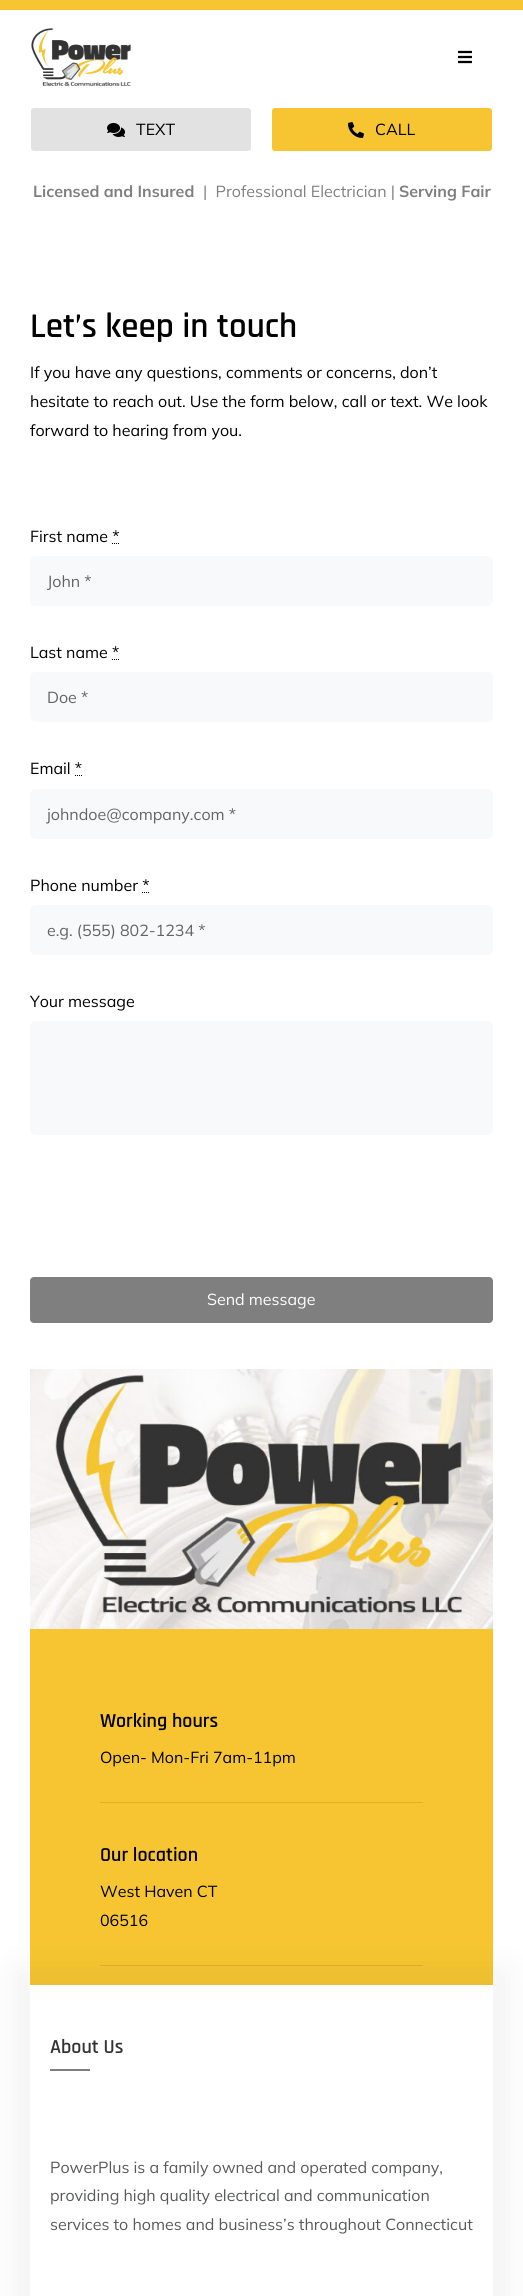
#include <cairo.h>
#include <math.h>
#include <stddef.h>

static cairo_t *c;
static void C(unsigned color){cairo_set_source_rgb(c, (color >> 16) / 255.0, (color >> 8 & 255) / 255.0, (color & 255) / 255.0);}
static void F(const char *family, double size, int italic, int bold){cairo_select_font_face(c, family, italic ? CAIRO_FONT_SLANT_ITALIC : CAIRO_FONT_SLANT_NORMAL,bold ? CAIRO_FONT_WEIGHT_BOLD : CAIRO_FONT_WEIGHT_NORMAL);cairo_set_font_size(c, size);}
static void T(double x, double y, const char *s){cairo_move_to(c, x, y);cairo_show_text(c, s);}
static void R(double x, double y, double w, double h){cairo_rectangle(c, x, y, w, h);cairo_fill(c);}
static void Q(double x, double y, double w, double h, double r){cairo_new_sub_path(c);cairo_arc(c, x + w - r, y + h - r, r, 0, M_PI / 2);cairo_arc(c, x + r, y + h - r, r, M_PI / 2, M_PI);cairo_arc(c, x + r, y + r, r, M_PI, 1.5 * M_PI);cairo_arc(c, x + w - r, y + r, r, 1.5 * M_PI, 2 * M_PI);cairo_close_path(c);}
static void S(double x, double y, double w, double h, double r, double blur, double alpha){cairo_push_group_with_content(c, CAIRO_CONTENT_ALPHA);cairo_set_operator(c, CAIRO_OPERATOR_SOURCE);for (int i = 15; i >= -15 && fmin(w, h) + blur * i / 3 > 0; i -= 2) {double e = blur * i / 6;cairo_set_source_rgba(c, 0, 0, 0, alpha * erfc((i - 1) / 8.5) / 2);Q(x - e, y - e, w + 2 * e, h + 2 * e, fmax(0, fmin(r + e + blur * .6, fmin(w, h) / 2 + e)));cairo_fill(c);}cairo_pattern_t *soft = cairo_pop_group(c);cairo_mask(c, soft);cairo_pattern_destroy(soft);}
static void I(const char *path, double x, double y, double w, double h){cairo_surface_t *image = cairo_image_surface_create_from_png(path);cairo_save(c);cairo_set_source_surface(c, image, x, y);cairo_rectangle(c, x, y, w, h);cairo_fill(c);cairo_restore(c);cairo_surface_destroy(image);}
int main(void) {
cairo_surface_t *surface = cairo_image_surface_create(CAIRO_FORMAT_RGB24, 523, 2296);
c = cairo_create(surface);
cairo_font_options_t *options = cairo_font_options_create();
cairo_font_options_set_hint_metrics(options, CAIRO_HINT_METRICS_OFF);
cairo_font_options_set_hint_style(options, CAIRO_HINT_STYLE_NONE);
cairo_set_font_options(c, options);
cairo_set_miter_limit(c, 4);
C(0xffffff);
cairo_paint(c);
C(0xf6c531);
R(0,0,523,10);
I("1.png",31,28,100,58);
I("2.png",458,50,14,14);
C(0xe2e2e2);
Q(31,108,220,43,3);
cairo_fill(c);
I("3.png",107,123,18,14);
F("Mulish",16,0,0);
C(0x000000);
T(136,135,"TEXT");
C(0xf6c531);
Q(272,108,220,43,3);
cairo_fill(c);
I("4.png",348,122,16,16);
C(0x000000);
T(375,135,"CALL");
F("Mulish",16,0,1);
C(0x7f7f7f);
T(33,197,"Licensed and Insured");
F("Mulish",16,0,0);
T(203,197,"|  Professional Electrician |");
F("Mulish",16,0,1);
T(399,197,"Serving Fair");
F("Rajdhani SemiBold",35,0,0);
C(0x000000);
T(30,337,"Let’s keep in touch");
F("Mulish",16,0,0);
T(30,378,"If you have any questions, comments or concerns, don’t");
T(30,407,"hesitate to reach out. Use the form below, call or text. We look");
T(30,436,"forward to hearing from you.");
T(30,542,"First name *");
cairo_new_path(c);
cairo_move_to(c,112,543.5);
cairo_line_to(c,119.5,543.5);
cairo_set_line_width(c,1);
cairo_set_dash(c,(double[]){1,1},2,0);
cairo_stroke(c);
C(0xf8f9fa);
Q(30,556,463,50,6);
cairo_fill(c);
C(0x636464);
T(47,587,"John *");
C(0x000000);
T(30,658,"Last name *");
cairo_new_path(c);
cairo_move_to(c,112,659.5);
cairo_line_to(c,119,659.5);
cairo_stroke(c);
C(0xf8f9fa);
Q(30,672,463,50,6);
cairo_fill(c);
C(0x636464);
T(47,703,"Doe *");
C(0x000000);
T(30,774,"Email *");
cairo_new_path(c);
cairo_move_to(c,75,775.5);
cairo_line_to(c,82,775.5);
cairo_stroke(c);
C(0xf8f9fa);
Q(30,789,463,50,6);
cairo_fill(c);
C(0x636464);
T(47,820,"johndoe@company.com *");
C(0x000000);
T(30,891,"Phone number *");
cairo_new_path(c);
cairo_move_to(c,142,892.5);
cairo_line_to(c,149.5,892.5);
cairo_stroke(c);
C(0xf8f9fa);
Q(30,905,463,50,6);
cairo_fill(c);
C(0x636464);
T(47,936,"e.g. (555) 802-1234 *");
C(0x000000);
T(30,1007,"Your message");
C(0xf8f9fa);
Q(30,1021,463,114,6);
cairo_fill(c);
C(0x7f7f7f);
Q(30,1277,463,46,4);
cairo_fill(c);
C(0xffffff);
T(207,1305,"Send message");
I("5.png",30,1369,463,260);
C(0xf6c531);
R(30,1629,463,356);
F("Rajdhani SemiBold",20,0,0);
C(0x000000);
T(100,1727,"Working hours");
F("Mulish",16,0,0);
T(100,1763,"Open- Mon-Fri 7am-11pm");
C(0xddb12c);
R(100,1802,323,1);
F("Rajdhani SemiBold",20,0,0);
C(0x000000);
T(100,1861,"Our location");
F("Mulish",16,0,0);
T(100,1897,"West Haven CT");
T(100,1926,"06516");
C(0xddb12c);
R(100,1965,323,1);
C(0x000000);
S(15,1970,493,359,0,17.5,.05);
C(0xffffff);
R(30,1985,463,311);
F("Rajdhani SemiBold",20,0,0);
C(0x323333);
T(50,2053,"About Us");
C(0x7f7f7f);
R(50,2069,40,2);
F("Mulish",16,0,0);
C(0x585a5a);
T(50,2173,"PowerPlus is a family owned and operated company,");
T(50,2201,"providing high quality electrical and communication");
T(50,2230,"services to homes and business’s throughout Connecticut");
cairo_surface_write_to_png(surface, "o.png");
cairo_font_options_destroy(options);
cairo_destroy(c);
cairo_surface_destroy(surface);
return 0;
}
